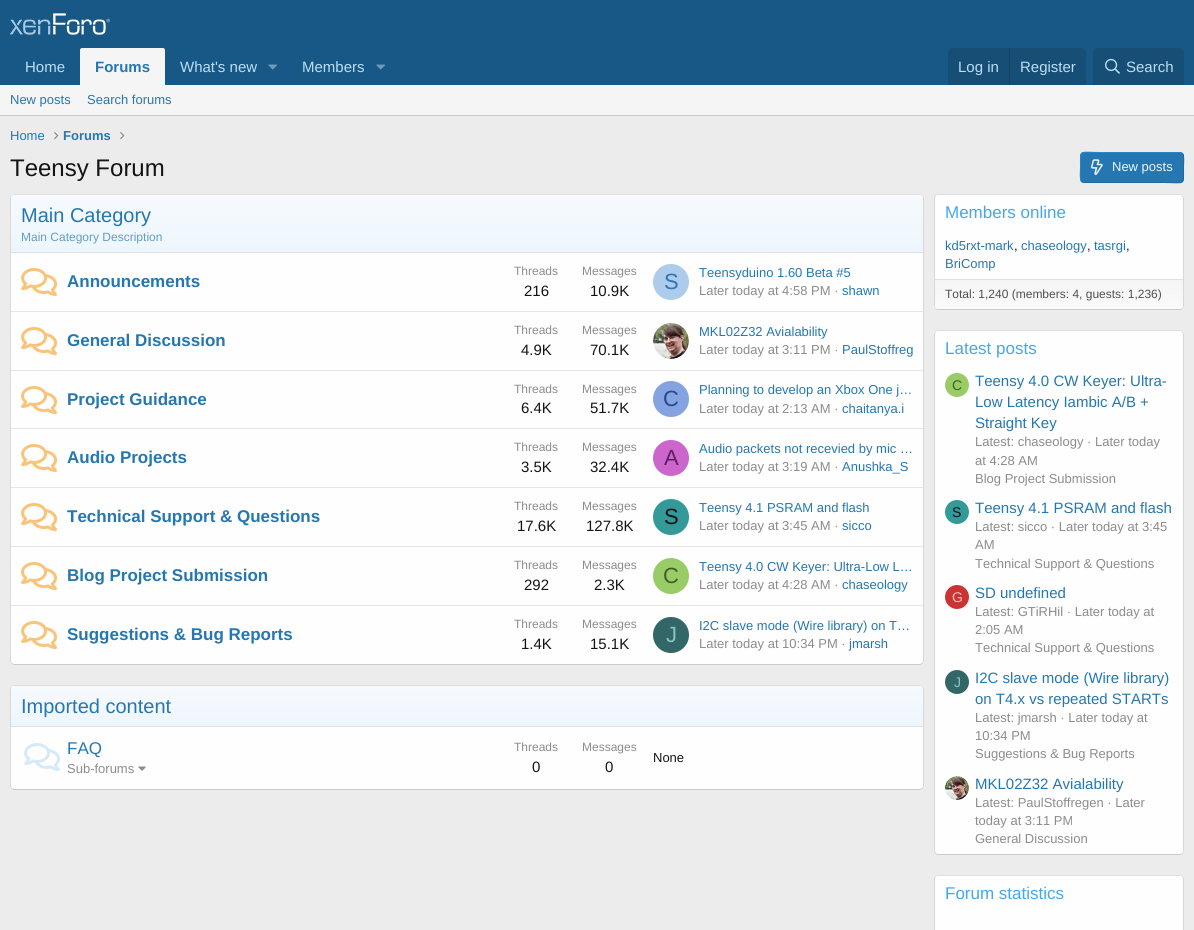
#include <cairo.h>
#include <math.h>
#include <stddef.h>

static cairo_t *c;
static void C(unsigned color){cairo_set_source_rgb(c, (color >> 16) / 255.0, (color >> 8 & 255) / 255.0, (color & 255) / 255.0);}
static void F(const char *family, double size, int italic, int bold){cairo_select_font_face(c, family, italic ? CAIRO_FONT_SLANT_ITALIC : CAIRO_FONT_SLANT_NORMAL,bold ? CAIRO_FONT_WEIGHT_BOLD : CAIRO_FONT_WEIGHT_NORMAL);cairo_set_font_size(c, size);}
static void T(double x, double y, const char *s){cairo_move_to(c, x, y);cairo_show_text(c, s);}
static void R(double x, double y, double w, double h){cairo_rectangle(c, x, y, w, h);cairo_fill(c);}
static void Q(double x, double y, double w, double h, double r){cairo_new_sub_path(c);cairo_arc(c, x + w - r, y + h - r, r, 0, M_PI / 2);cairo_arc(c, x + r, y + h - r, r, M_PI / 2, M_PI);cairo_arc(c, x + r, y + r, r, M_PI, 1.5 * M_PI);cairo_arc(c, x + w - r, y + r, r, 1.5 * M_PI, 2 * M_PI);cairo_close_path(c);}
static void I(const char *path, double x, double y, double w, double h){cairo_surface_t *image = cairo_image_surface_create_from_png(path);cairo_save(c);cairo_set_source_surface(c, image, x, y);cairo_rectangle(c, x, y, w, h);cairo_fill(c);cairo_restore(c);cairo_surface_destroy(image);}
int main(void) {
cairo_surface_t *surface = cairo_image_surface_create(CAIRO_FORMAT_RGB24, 1194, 930);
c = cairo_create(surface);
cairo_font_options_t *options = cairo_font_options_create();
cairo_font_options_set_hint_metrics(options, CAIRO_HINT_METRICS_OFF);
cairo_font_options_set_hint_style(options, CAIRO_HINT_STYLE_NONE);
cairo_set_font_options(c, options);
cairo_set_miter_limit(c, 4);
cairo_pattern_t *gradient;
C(0xececec);
cairo_paint(c);
C(0x185886);
R(0,0,1194,85);
I("1.png",10,13,100,22);
F("Liberation Sans",15,0,0);
C(0xbcdef5);
T(25,72,"Home");
C(0xf5f5f5);
cairo_new_path(c);
cairo_move_to(c,82,48);
cairo_line_to(c,163,48);
cairo_curve_to(c,164,48,165,49,165,50);
cairo_line_to(c,165,85);
cairo_line_to(c,80,85);
cairo_line_to(c,80,50);
cairo_curve_to(c,80,49,81,48,82,48);
cairo_close_path(c);
cairo_fill(c);
F("Liberation Sans",15,0,1);
C(0x2577b1);
T(95,72,"Forums");
F("Liberation Sans",15,0,0);
C(0xbcdef5);
T(180,72,"What's new");
I("2.png",268,64,9,6);
T(302,72,"Members");
I("2.png",376,64,9,6);
C(0x174e75);
cairo_new_path(c);
cairo_move_to(c,952,48);
cairo_line_to(c,1082,48);
cairo_curve_to(c,1084,48,1086,50,1086,52);
cairo_line_to(c,1086,85);
cairo_line_to(c,948,85);
cairo_line_to(c,948,52);
cairo_curve_to(c,948,50,950,48,952,48);
cairo_close_path(c);
cairo_fill(c);
C(0xbcdef5);
T(958,72,"Log in");
C(0x174566);
R(1009,48,1,37);
C(0xbcdef5);
T(1020,72,"Register");
C(0x174e75);
cairo_new_path(c);
cairo_move_to(c,1097,48);
cairo_line_to(c,1180,48);
cairo_curve_to(c,1182,48,1184,50,1184,52);
cairo_line_to(c,1184,85);
cairo_line_to(c,1093,85);
cairo_line_to(c,1093,52);
cairo_curve_to(c,1093,50,1095,48,1097,48);
cairo_close_path(c);
cairo_fill(c);
I("3.png",1105,58,15,16);
C(0xbcdef5);
T(1126,72,"Search");
C(0xf5f5f5);
R(0,85,1194,30);
C(0xcbcbcb);
R(0,115,1194,1);
F("Liberation Sans",13,0,0);
C(0x2577b1);
T(10,104,"New posts");
T(87,104,"Search forums");
T(10,140,"Home");
I("4.png",54,132,5,8);
F("Liberation Sans",13,0,1);
T(63,140,"Forums");
I("4.png",120,132,5,8);
F("Liberation Sans",24,0,0);
C(0x141414);
T(10,176,"Teensy Forum");
C(0x2577b1);
Q(1080,152,104,31,4);
cairo_fill(c);
cairo_new_path(c);
cairo_move_to(c,1182.5,153.5);
cairo_curve_to(c,1184.5,156,1183.5,164.5,1183.5,167.5);
cairo_curve_to(c,1183.5,186.5,1185.5,182.5,1164,182.5);
cairo_line_to(c,1084,182.5);
cairo_line_to(c,1081.5,181.5);
C(0x21699c);
cairo_set_line_width(c,1);
cairo_stroke(c);
cairo_new_path(c);
cairo_move_to(c,1081.5,181.5);
cairo_curve_to(c,1079.5,179,1080.5,170.5,1080.5,167.5);
cairo_curve_to(c,1080.5,148.5,1078.5,152.5,1100,152.5);
cairo_line_to(c,1180,152.5);
cairo_line_to(c,1182.5,153.5);
C(0x2985c6);
cairo_stroke(c);
I("5.png",1091,159,12,16);
F("Liberation Sans",13,0,0);
C(0xedf6fd);
T(1112,171,"New posts");
C(0xfefefe);
Q(10,194,914,471,4);
cairo_fill(c);
cairo_new_path(c);
cairo_move_to(c,11.5,195.5);
cairo_line_to(c,14,194.5);
cairo_line_to(c,920,194.5);
cairo_line_to(c,922.5,195.5);
C(0xdfdfdf);
cairo_stroke(c);
cairo_new_path(c);
cairo_move_to(c,922.5,195.5);
cairo_line_to(c,923.5,198);
cairo_line_to(c,923.5,661);
cairo_line_to(c,922.5,663.5);
C(0xd8d8d8);
cairo_stroke(c);
cairo_new_path(c);
cairo_move_to(c,922.5,663.5);
cairo_line_to(c,920,664.5);
cairo_line_to(c,14,664.5);
cairo_line_to(c,11.5,663.5);
C(0xcbcbcb);
cairo_stroke(c);
cairo_new_path(c);
cairo_move_to(c,11.5,663.5);
cairo_line_to(c,10.5,661);
cairo_line_to(c,10.5,198);
cairo_line_to(c,11.5,195.5);
C(0xd8d8d8);
cairo_stroke(c);
gradient = cairo_pattern_create_linear(467,252,467,195);
cairo_pattern_add_color_stop_rgba(gradient,0,0.929,0.965,0.992,1);
cairo_pattern_add_color_stop_rgba(gradient,1,0.965,0.98,0.996,1);
cairo_set_source(c,gradient);
cairo_pattern_destroy(gradient);
cairo_new_path(c);
cairo_move_to(c,14,195);
cairo_line_to(c,920,195);
cairo_curve_to(c,921.5,195,923,196.5,923,198);
cairo_line_to(c,923,252);
cairo_line_to(c,11,252);
cairo_line_to(c,11,198);
cairo_curve_to(c,11,196.5,12.5,195,14,195);
cairo_close_path(c);
cairo_fill(c);
C(0xdfdfdf);
R(11,252,912,1);
F("Liberation Sans",20,0,0);
C(0x2577b1);
T(21,222,"Main Category");
F("Liberation Sans",12,0,0);
C(0x629dc8);
T(21,241,"Main Category Description");
I("6.png",21,268,36,28);
F("Liberation Sans",17,0,1);
C(0x2577b1);
T(67,287,"Announcements");
F("Liberation Sans",12,0,0);
C(0x8c8c8c);
T(514,275,"Threads");
F("Liberation Sans",15,0,0);
C(0x141414);
T(524,296,"216");
F("Liberation Sans",12,0,0);
C(0x8c8c8c);
T(582,275,"Messages");
F("Liberation Sans",15,0,0);
C(0x141414);
T(590,296,"10.9K");
C(0xadcceb);
cairo_new_path(c);
cairo_arc(c,671,282,18,0,2 * M_PI);
cairo_fill(c);
F("Liberation Sans",22,0,0);
C(0x2e73b8);
T(664,289,"S");
F("Liberation Sans",13,0,0);
C(0x2577b1);
T(699,277,"Teensyduino 1.60 Beta #5");
C(0x8c8c8c);
T(699,295,"Later today at 4:58 PM ·");
C(0x2577b1);
T(842,295,"shawn");
C(0xe7e7e7);
R(11,311,912,1);
I("6.png",21,327,36,28);
F("Liberation Sans",17,0,1);
C(0x2577b1);
T(67,346,"General Discussion");
F("Liberation Sans",12,0,0);
C(0x8c8c8c);
T(514,334,"Threads");
F("Liberation Sans",15,0,0);
C(0x141414);
T(521,355,"4.9K");
F("Liberation Sans",12,0,0);
C(0x8c8c8c);
T(582,334,"Messages");
F("Liberation Sans",15,0,0);
C(0x141414);
T(590,355,"70.1K");
I("7.png",653,323,36,36);
F("Liberation Sans",13,0,0);
C(0x2577b1);
T(699,336,"MKL02Z32 Avialability");
C(0x8c8c8c);
T(699,354,"Later today at 3:11 PM ·");
C(0x2577b1);
T(842,354,"PaulStoffreg");
C(0xe7e7e7);
R(11,370,912,1);
I("6.png",21,386,36,28);
F("Liberation Sans",17,0,1);
C(0x2577b1);
T(67,405,"Project Guidance");
F("Liberation Sans",12,0,0);
C(0x8c8c8c);
T(514,393,"Threads");
F("Liberation Sans",15,0,0);
C(0x141414);
T(521,413,"6.4K");
F("Liberation Sans",12,0,0);
C(0x8c8c8c);
T(582,393,"Messages");
F("Liberation Sans",15,0,0);
C(0x141414);
T(590,413,"51.7K");
C(0x85a3e0);
cairo_new_path(c);
cairo_arc(c,671,399,18,0,2 * M_PI);
cairo_fill(c);
F("Liberation Sans",22,0,0);
C(0x24478f);
T(663,406,"C");
F("Liberation Sans",13,0,0);
C(0x2577b1);
T(699,394,"Planning to develop an Xbox One j…");
C(0x8c8c8c);
T(699,413,"Later today at 2:13 AM ·");
C(0x2577b1);
T(842,413,"chaitanya.i");
C(0xe7e7e7);
R(11,428,912,1);
I("6.png",21,444,36,28);
F("Liberation Sans",17,0,1);
C(0x2577b1);
T(67,463,"Audio Projects");
F("Liberation Sans",12,0,0);
C(0x8c8c8c);
T(514,451,"Threads");
F("Liberation Sans",15,0,0);
C(0x141414);
T(521,472,"3.5K");
F("Liberation Sans",12,0,0);
C(0x8c8c8c);
T(582,451,"Messages");
F("Liberation Sans",15,0,0);
C(0x141414);
T(590,472,"32.4K");
C(0xcc66cc);
cairo_new_path(c);
cairo_arc(c,671,458,18,0,2 * M_PI);
cairo_fill(c);
F("Liberation Sans",22,0,0);
C(0x602060);
T(664,465,"A");
F("Liberation Sans",13,0,0);
C(0x2577b1);
T(699,453,"Audio packets not recevied by mic …");
C(0x8c8c8c);
T(699,471,"Later today at 3:19 AM ·");
C(0x2577b1);
T(842,471,"Anushka_S");
C(0xe7e7e7);
R(11,487,912,1);
I("6.png",21,503,36,28);
F("Liberation Sans",17,0,1);
C(0x2577b1);
T(67,522,"Technical Support & Questions");
F("Liberation Sans",12,0,0);
C(0x8c8c8c);
T(514,510,"Threads");
F("Liberation Sans",15,0,0);
C(0x141414);
T(517,531,"17.6K");
F("Liberation Sans",12,0,0);
C(0x8c8c8c);
T(582,510,"Messages");
F("Liberation Sans",15,0,0);
C(0x141414);
T(586,531,"127.8K");
C(0x339999);
cairo_new_path(c);
cairo_arc(c,671,517,18,0,2 * M_PI);
cairo_fill(c);
F("Liberation Sans",22,0,0);
C(0x061313);
T(664,524,"S");
F("Liberation Sans",13,0,0);
C(0x2577b1);
T(699,512,"Teensy 4.1 PSRAM and flash");
C(0x8c8c8c);
T(699,530,"Later today at 3:45 AM ·");
C(0x2577b1);
T(842,530,"sicco");
C(0xe7e7e7);
R(11,546,912,1);
I("6.png",21,562,36,28);
F("Liberation Sans",17,0,1);
C(0x2577b1);
T(67,581,"Blog Project Submission");
F("Liberation Sans",12,0,0);
C(0x8c8c8c);
T(514,569,"Threads");
F("Liberation Sans",15,0,0);
C(0x141414);
T(524,590,"292");
F("Liberation Sans",12,0,0);
C(0x8c8c8c);
T(582,569,"Messages");
F("Liberation Sans",15,0,0);
C(0x141414);
T(594,590,"2.3K");
C(0x99cc66);
cairo_new_path(c);
cairo_arc(c,671,576,18,0,2 * M_PI);
cairo_fill(c);
F("Liberation Sans",22,0,0);
C(0x406020);
T(663,583,"C");
F("Liberation Sans",13,0,0);
C(0x2577b1);
T(699,571,"Teensy 4.0 CW Keyer: Ultra-Low L…");
C(0x8c8c8c);
T(699,589,"Later today at 4:28 AM ·");
C(0x2577b1);
T(842,589,"chaseology");
C(0xe7e7e7);
R(11,605,912,1);
I("6.png",21,621,36,28);
F("Liberation Sans",17,0,1);
C(0x2577b1);
T(67,640,"Suggestions & Bug Reports");
F("Liberation Sans",12,0,0);
C(0x8c8c8c);
T(514,628,"Threads");
F("Liberation Sans",15,0,0);
C(0x141414);
T(521,649,"1.4K");
F("Liberation Sans",12,0,0);
C(0x8c8c8c);
T(582,628,"Messages");
F("Liberation Sans",15,0,0);
C(0x141414);
T(590,649,"15.1K");
C(0x336666);
cairo_new_path(c);
cairo_arc(c,671,635,18,0,2 * M_PI);
cairo_fill(c);
F("Liberation Sans",22,0,0);
C(0x88c3c3);
T(666,642,"J");
F("Liberation Sans",13,0,0);
C(0x2577b1);
T(699,630,"I2C slave mode (Wire library) on T…");
C(0x8c8c8c);
T(699,648,"Later today at 10:34 PM ·");
C(0x2577b1);
T(849,648,"jmarsh");
C(0xfefefe);
Q(10,685,914,105,4);
cairo_fill(c);
cairo_new_path(c);
cairo_move_to(c,11.5,686.5);
cairo_line_to(c,14,685.5);
cairo_line_to(c,920,685.5);
cairo_line_to(c,922.5,686.5);
C(0xdfdfdf);
cairo_stroke(c);
cairo_new_path(c);
cairo_move_to(c,922.5,686.5);
cairo_line_to(c,923.5,688.5);
cairo_line_to(c,923.5,770);
cairo_line_to(c,923.5,786);
cairo_line_to(c,922.5,788.5);
C(0xd8d8d8);
cairo_stroke(c);
cairo_new_path(c);
cairo_move_to(c,922.5,788.5);
cairo_line_to(c,920,789.5);
cairo_line_to(c,14,789.5);
cairo_line_to(c,11.5,788.5);
C(0xcbcbcb);
cairo_stroke(c);
cairo_new_path(c);
cairo_move_to(c,11.5,788.5);
cairo_line_to(c,10.5,786);
cairo_line_to(c,10.5,688.5);
cairo_line_to(c,11.5,686.5);
C(0xd8d8d8);
cairo_stroke(c);
gradient = cairo_pattern_create_linear(467,726,467,686);
cairo_pattern_add_color_stop_rgba(gradient,0,0.929,0.965,0.992,1);
cairo_pattern_add_color_stop_rgba(gradient,1,0.965,0.98,0.996,1);
cairo_set_source(c,gradient);
cairo_pattern_destroy(gradient);
cairo_new_path(c);
cairo_move_to(c,14,686);
cairo_line_to(c,920,686);
cairo_curve_to(c,921.5,686,923,687.5,923,689);
cairo_line_to(c,923,726);
cairo_line_to(c,11,726);
cairo_line_to(c,11,689);
cairo_curve_to(c,11,687.5,12.5,686,14,686);
cairo_close_path(c);
cairo_fill(c);
C(0xdfdfdf);
R(11,726,912,1);
F("Liberation Sans",20,0,0);
C(0x2577b1);
T(21,713,"Imported content");
I("8.png",24,743,36,28);
F("Liberation Sans",17,0,0);
T(67,754,"FAQ");
F("Liberation Sans",13,0,0);
C(0x8c8c8c);
T(67,773,"Sub-forums");
I("9.png",138,766,8,5);
F("Liberation Sans",12,0,0);
T(514,751,"Threads");
F("Liberation Sans",15,0,0);
C(0x141414);
T(532,772,"0");
F("Liberation Sans",12,0,0);
C(0x8c8c8c);
T(582,751,"Messages");
F("Liberation Sans",15,0,0);
C(0x141414);
T(605,772,"0");
F("Liberation Sans",13,0,0);
T(653,762,"None");
C(0xfefefe);
Q(934,194,250,116,4);
cairo_fill(c);
cairo_new_path(c);
cairo_move_to(c,935.5,195.5);
cairo_curve_to(c,936,195,937,194.5,938,194.5);
cairo_line_to(c,1180,194.5);
cairo_curve_to(c,1181,194.5,1182,195,1182.5,195.5);
C(0xdfdfdf);
cairo_stroke(c);
cairo_new_path(c);
cairo_move_to(c,1182.5,195.5);
cairo_line_to(c,1183.5,197.5);
cairo_line_to(c,1183.5,288);
cairo_line_to(c,1183.5,306);
cairo_line_to(c,1182.5,308.5);
C(0xd8d8d8);
cairo_stroke(c);
cairo_new_path(c);
cairo_move_to(c,1182.5,308.5);
cairo_curve_to(c,1182,309,1181,309.5,1180,309.5);
cairo_line_to(c,938,309.5);
cairo_curve_to(c,937,309.5,936,309,935.5,308.5);
C(0xcbcbcb);
cairo_stroke(c);
cairo_new_path(c);
cairo_move_to(c,935.5,308.5);
cairo_line_to(c,934.5,306);
cairo_line_to(c,934.5,197.5);
cairo_line_to(c,935.5,195.5);
C(0xd8d8d8);
cairo_stroke(c);
F("Liberation Sans",17,0,0);
C(0x47a7eb);
T(945,218,"Members online");
F("Liberation Sans",13,0,0);
C(0x2577b1);
T(945,250,"kd5rxt-mark");
C(0x141414);
T(1014,250,",");
C(0x2577b1);
T(1021,250,"chaseology");
C(0x141414);
T(1087,250,",");
C(0x2577b1);
T(1094,250,"tasrgi");
C(0x141414);
T(1126,250,",");
C(0x2577b1);
T(945,268,"BriComp");
gradient = cairo_pattern_create_linear(1059,280,1059,309);
cairo_pattern_add_color_stop_rgba(gradient,0,0.961,0.961,0.961,1);
cairo_pattern_add_color_stop_rgba(gradient,1,0.98,0.98,0.98,1);
cairo_set_source(c,gradient);
cairo_pattern_destroy(gradient);
cairo_new_path(c);
cairo_move_to(c,935,280);
cairo_line_to(c,1183,280);
cairo_line_to(c,1183,306);
cairo_curve_to(c,1183,307.5,1181.5,309,1180,309);
cairo_line_to(c,938,309);
cairo_curve_to(c,936.5,309,935,307.5,935,306);
cairo_close_path(c);
cairo_fill(c);
C(0xdfdfdf);
R(935,279,248,1);
F("Liberation Sans",12,0,0);
C(0x505050);
T(945,298,"Total: 1,240 (members: 4, guests: 1,236)");
C(0xfefefe);
Q(934,330,250,525,4);
cairo_fill(c);
cairo_new_path(c);
cairo_move_to(c,935.5,331.5);
cairo_curve_to(c,936,331,937,330.5,938,330.5);
cairo_line_to(c,1180,330.5);
cairo_curve_to(c,1181,330.5,1182,331,1182.5,331.5);
C(0xdfdfdf);
cairo_stroke(c);
cairo_new_path(c);
cairo_move_to(c,1182.5,331.5);
cairo_line_to(c,1183.5,334);
cairo_line_to(c,1183.5,851);
cairo_line_to(c,1182.5,853.5);
C(0xd8d8d8);
cairo_stroke(c);
cairo_new_path(c);
cairo_move_to(c,1182.5,853.5);
cairo_curve_to(c,1182,854,1181,854.5,1180,854.5);
cairo_line_to(c,938,854.5);
cairo_curve_to(c,937,854.5,936,854,935.5,853.5);
C(0xcbcbcb);
cairo_stroke(c);
cairo_new_path(c);
cairo_move_to(c,935.5,853.5);
cairo_line_to(c,934.5,851);
cairo_line_to(c,934.5,334);
cairo_line_to(c,935.5,331.5);
C(0xd8d8d8);
cairo_stroke(c);
F("Liberation Sans",17,0,0);
C(0x47a7eb);
T(945,354,"Latest posts");
C(0x99cc66);
cairo_new_path(c);
cairo_arc(c,957,385,12,0,2 * M_PI);
cairo_fill(c);
F("Liberation Sans",14,0,0);
C(0x406020);
T(952,390,"C");
F("Liberation Sans",15,0,0);
C(0x2577b1);
T(975,386,"Teensy 4.0 CW Keyer: Ultra-");
T(975,407,"Low Latency Iambic A/B +");
T(975,428,"Straight Key");
F("Liberation Sans",13,0,0);
C(0x8c8c8c);
T(975,446,"Latest: chaseology · Later today");
T(975,465,"at 4:28 AM");
T(975,483,"Blog Project Submission");
C(0x339999);
cairo_new_path(c);
cairo_arc(c,957,512,12,0,2 * M_PI);
cairo_fill(c);
F("Liberation Sans",14,0,0);
C(0x061313);
T(952,517,"S");
F("Liberation Sans",15,0,0);
C(0x2577b1);
T(975,513,"Teensy 4.1 PSRAM and flash");
F("Liberation Sans",13,0,0);
C(0x8c8c8c);
T(975,531,"Latest: sicco · Later today at 3:45");
T(975,549,"AM");
T(975,568,"Technical Support & Questions");
C(0xcc3333);
cairo_new_path(c);
cairo_arc(c,957,597,12,0,2 * M_PI);
cairo_fill(c);
F("Liberation Sans",14,0,0);
C(0xf0c2c2);
T(952,602,"G");
F("Liberation Sans",15,0,0);
C(0x2577b1);
T(975,598,"SD undefined");
F("Liberation Sans",13,0,0);
C(0x8c8c8c);
T(975,616,"Latest: GTiRHil · Later today at");
T(975,634,"2:05 AM");
T(975,652,"Technical Support & Questions");
C(0x336666);
cairo_new_path(c);
cairo_arc(c,957,682,12,0,2 * M_PI);
cairo_fill(c);
F("Liberation Sans",14,0,0);
C(0x88c3c3);
T(954,687,"J");
F("Liberation Sans",15,0,0);
C(0x2577b1);
T(975,683,"I2C slave mode (Wire library)");
T(975,704,"on T4.x vs repeated STARTs");
F("Liberation Sans",13,0,0);
C(0x8c8c8c);
T(975,722,"Latest: jmarsh · Later today at");
T(975,740,"10:34 PM");
T(975,758,"Suggestions & Bug Reports");
I("10.png",945,776,24,24);
F("Liberation Sans",15,0,0);
C(0x2577b1);
T(975,789,"MKL02Z32 Avialability");
F("Liberation Sans",13,0,0);
C(0x8c8c8c);
T(975,807,"Latest: PaulStoffregen · Later");
T(975,825,"today at 3:11 PM");
T(975,843,"General Discussion");
C(0xfefefe);
Q(934,875,250,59,4);
cairo_fill(c);
cairo_new_path(c);
cairo_move_to(c,935.5,876.5);
cairo_curve_to(c,936,876,937,875.5,938,875.5);
cairo_line_to(c,1180,875.5);
cairo_curve_to(c,1181,875.5,1182,876,1182.5,876.5);
C(0xdfdfdf);
cairo_stroke(c);
cairo_new_path(c);
cairo_move_to(c,1182.5,876.5);
cairo_curve_to(c,1183,877,1183.5,878,1183.5,879);
cairo_line_to(c,1183.5,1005);
cairo_curve_to(c,1183.5,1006,1183,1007,1182.5,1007.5);
C(0xd8d8d8);
cairo_stroke(c);
cairo_new_path(c);
cairo_move_to(c,935.5,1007.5);
cairo_curve_to(c,935,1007,934.5,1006,934.5,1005);
cairo_line_to(c,934.5,879);
cairo_curve_to(c,934.5,878,935,877,935.5,876.5);
cairo_stroke(c);
F("Liberation Sans",17,0,0);
C(0x47a7eb);
T(945,899,"Forum statistics");
cairo_surface_write_to_png(surface, "o.png");
cairo_font_options_destroy(options);
cairo_destroy(c);
cairo_surface_destroy(surface);
return 0;
}
